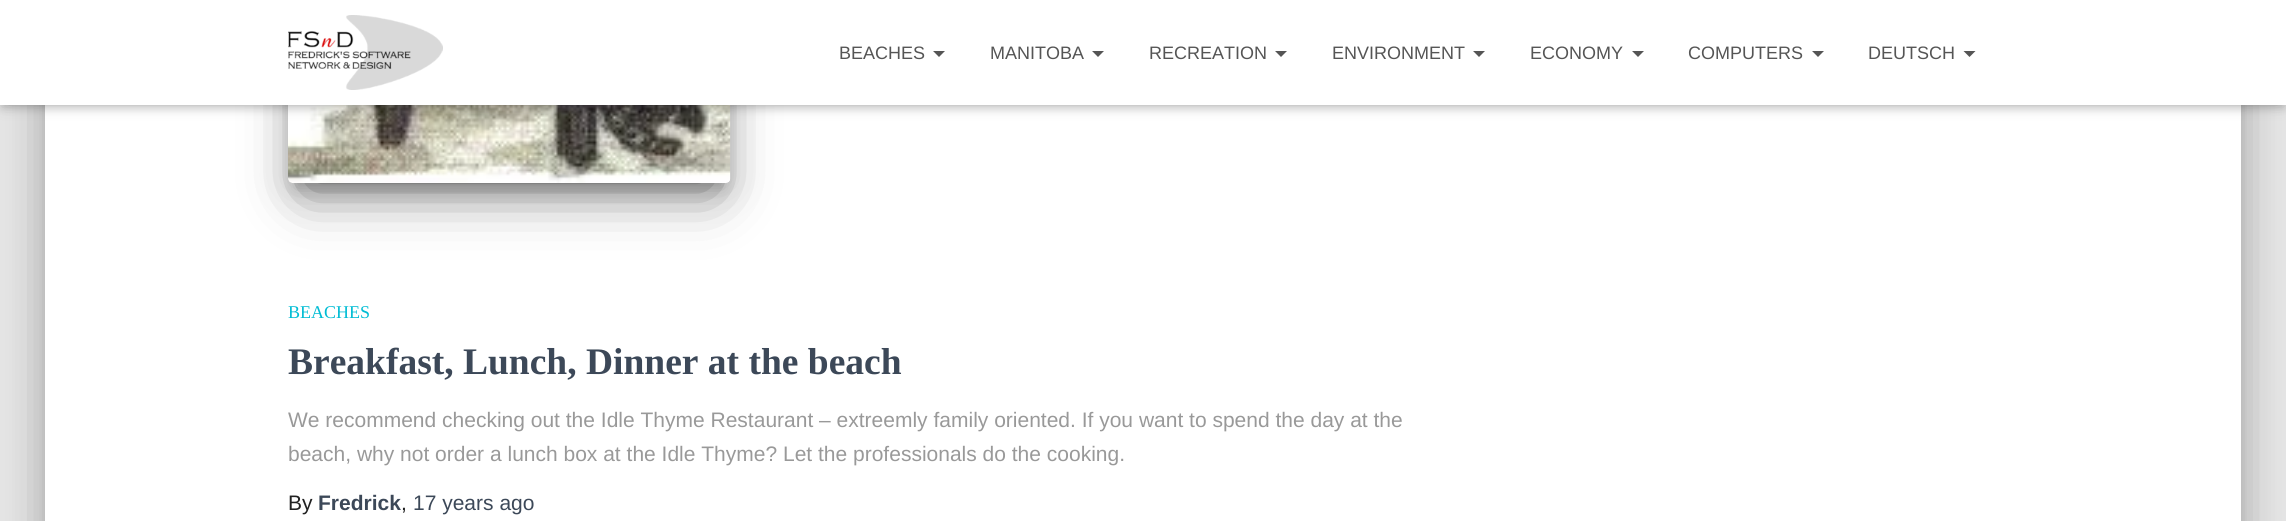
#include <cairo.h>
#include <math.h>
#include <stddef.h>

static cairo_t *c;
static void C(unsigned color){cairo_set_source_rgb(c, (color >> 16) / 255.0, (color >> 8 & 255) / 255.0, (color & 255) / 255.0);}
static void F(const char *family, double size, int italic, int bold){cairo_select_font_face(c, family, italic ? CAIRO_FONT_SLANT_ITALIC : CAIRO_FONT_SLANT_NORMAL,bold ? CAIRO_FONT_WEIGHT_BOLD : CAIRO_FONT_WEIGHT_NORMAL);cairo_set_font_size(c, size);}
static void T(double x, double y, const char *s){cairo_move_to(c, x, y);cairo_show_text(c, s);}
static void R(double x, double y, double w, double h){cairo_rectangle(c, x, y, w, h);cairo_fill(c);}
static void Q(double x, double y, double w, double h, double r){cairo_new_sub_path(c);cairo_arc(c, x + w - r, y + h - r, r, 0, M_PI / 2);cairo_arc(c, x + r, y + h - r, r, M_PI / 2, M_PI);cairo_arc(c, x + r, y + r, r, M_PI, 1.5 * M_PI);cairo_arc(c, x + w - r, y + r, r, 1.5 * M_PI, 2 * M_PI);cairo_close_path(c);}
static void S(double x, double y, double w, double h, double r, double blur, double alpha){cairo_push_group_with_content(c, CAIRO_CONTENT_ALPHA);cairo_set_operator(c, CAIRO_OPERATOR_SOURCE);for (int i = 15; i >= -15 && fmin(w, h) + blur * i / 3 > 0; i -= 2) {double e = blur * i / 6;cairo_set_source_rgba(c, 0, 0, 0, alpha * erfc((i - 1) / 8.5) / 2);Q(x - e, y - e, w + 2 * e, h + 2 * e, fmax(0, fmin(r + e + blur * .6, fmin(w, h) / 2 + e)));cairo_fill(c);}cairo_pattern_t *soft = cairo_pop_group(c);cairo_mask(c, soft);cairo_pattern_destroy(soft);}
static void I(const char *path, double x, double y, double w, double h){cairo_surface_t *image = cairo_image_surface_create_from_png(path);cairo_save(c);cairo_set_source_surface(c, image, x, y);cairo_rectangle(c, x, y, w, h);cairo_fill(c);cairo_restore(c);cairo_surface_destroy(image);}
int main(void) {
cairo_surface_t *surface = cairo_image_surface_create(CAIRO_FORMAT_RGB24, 2286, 521);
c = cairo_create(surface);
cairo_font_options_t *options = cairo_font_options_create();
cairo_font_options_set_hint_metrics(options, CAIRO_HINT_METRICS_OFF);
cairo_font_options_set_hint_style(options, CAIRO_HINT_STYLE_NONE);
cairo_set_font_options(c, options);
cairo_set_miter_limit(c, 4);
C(0xe5e5e5);
cairo_paint(c);
C(0x000000);
S(53,-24,2181,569,1.5,7.5,.2);
S(38,-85,2211,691,17,22.5,.12);
S(42,-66,2202,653,12,18,.14);
C(0xffffff);
R(45,105,2196,416);
C(0x000000);
S(296,-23,427,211,0,7.5,.2);
S(288,-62,443,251,5,19,.12);
S(306,-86,407,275,0,28.5,.56);
I("2.png",288,105,443,78);
S(3,9,2280,99,0,4,.1);
S(0,2,2286,105,0,7.5,.12);
S(9,11,2268,87,0,7.5,.42);
C(0xffffff);
R(0,0,2286,105);
I("1.png",288,15,155,75);
F("Liberation Sans",18,0,0);
C(0x555555);
T(839,59,"BEACHES");
cairo_new_path(c);
cairo_move_to(c,933,51);
cairo_line_to(c,945,51);
cairo_line_to(c,939,57);
cairo_close_path(c);
cairo_fill(c);
T(990,59,"MANITOBA");
cairo_new_path(c);
cairo_move_to(c,1092,51);
cairo_line_to(c,1104,51);
cairo_line_to(c,1098,57);
cairo_close_path(c);
cairo_fill(c);
T(1149,59,"RECREATION");
cairo_new_path(c);
cairo_move_to(c,1275,51);
cairo_line_to(c,1287,51);
cairo_line_to(c,1281,57);
cairo_close_path(c);
cairo_fill(c);
T(1332,59,"ENVIRONMENT");
cairo_new_path(c);
cairo_move_to(c,1473,51);
cairo_line_to(c,1485,51);
cairo_line_to(c,1479,57);
cairo_close_path(c);
cairo_fill(c);
T(1530,59,"ECONOMY");
cairo_new_path(c);
cairo_move_to(c,1632,51);
cairo_line_to(c,1644,51);
cairo_line_to(c,1638,57);
cairo_close_path(c);
cairo_fill(c);
T(1688,59,"COMPUTERS");
cairo_new_path(c);
cairo_move_to(c,1812,51);
cairo_line_to(c,1824,51);
cairo_line_to(c,1818,57);
cairo_close_path(c);
cairo_fill(c);
T(1868,59,"DEUTSCH");
cairo_new_path(c);
cairo_move_to(c,1963.5,51);
cairo_line_to(c,1975.5,51);
cairo_line_to(c,1969.5,57);
cairo_close_path(c);
cairo_fill(c);
F("Liberation Serif",18,0,0);
C(0x00bcd4);
T(288,318,"BEACHES");
F("Liberation Serif",37.5,0,1);
C(0x3c4858);
T(288,374,"Breakfast, Lunch, Dinner at the beach");
F("Liberation Sans",21,0,0);
C(0x999999);
T(288,427,"We recommend checking out the Idle Thyme Restaurant – extreemly family oriented. If you want to spend the day at the");
T(288,461,"beach, why not order a lunch box at the Idle Thyme? Let the professionals do the cooking.");
C(0x212121);
T(288,510,"By");
F("Liberation Sans",21,0,1);
C(0x3c4858);
T(318,510,"Fredrick");
F("Liberation Sans",21,0,0);
C(0x212121);
T(401,510,",");
C(0x3c4858);
T(413,510,"17 years ago");
cairo_surface_write_to_png(surface, "o.png");
cairo_font_options_destroy(options);
cairo_destroy(c);
cairo_surface_destroy(surface);
return 0;
}
